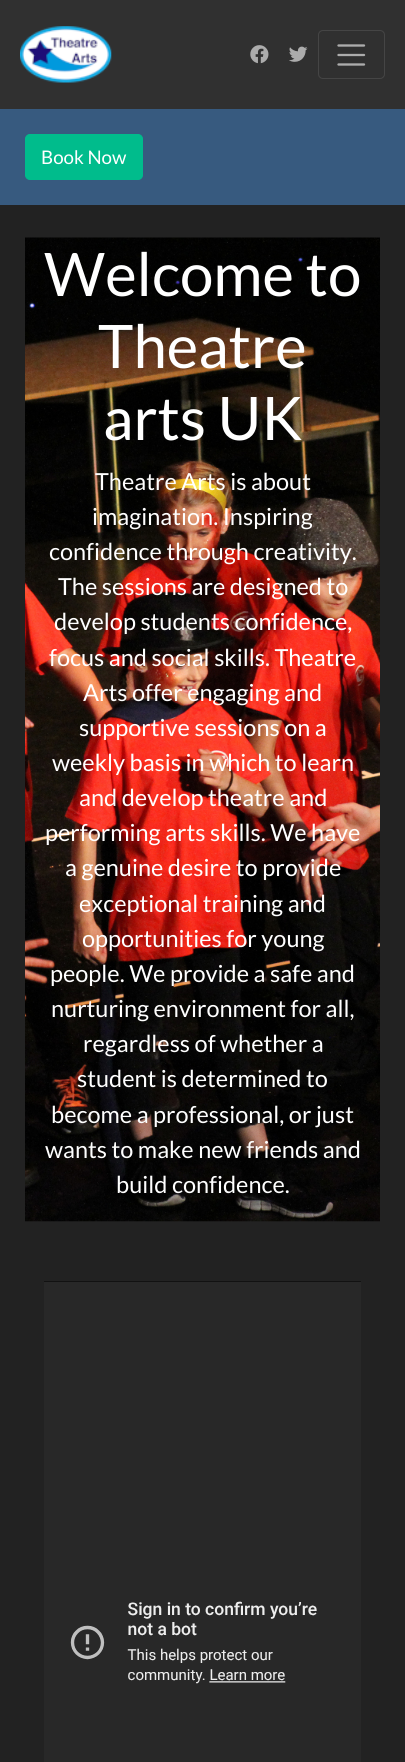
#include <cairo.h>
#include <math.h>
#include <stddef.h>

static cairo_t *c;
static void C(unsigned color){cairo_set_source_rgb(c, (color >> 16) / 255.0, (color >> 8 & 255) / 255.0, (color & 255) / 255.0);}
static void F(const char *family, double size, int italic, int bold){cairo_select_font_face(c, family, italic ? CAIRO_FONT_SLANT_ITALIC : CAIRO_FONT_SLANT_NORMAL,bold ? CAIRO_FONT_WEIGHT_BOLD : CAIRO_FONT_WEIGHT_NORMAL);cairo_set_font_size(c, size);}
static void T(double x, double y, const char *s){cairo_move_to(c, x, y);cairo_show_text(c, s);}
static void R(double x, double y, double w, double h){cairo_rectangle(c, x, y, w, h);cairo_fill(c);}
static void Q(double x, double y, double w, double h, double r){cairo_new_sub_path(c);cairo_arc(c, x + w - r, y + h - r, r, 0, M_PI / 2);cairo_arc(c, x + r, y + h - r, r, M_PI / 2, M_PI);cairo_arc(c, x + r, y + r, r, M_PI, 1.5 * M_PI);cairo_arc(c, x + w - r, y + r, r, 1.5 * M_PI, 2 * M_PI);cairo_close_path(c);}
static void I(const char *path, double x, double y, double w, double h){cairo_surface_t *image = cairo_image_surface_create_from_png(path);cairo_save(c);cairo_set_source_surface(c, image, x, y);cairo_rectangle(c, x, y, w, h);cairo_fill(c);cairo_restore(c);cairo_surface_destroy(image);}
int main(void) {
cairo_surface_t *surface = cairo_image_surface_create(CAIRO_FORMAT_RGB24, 405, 1762);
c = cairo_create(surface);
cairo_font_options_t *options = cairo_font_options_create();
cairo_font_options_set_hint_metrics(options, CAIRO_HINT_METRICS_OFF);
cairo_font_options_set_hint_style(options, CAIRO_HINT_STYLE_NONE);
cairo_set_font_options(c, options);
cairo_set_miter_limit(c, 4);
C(0x222222);
cairo_paint(c);
C(0x303030);
R(0,0,405,109);
I("1.png",20,26,92,57);
I("2.png",250,45,19,19);
I("3.png",289,46,19,16);
Q(318.5,30.5,66,48,4.5);
C(0x454545);
cairo_set_line_width(c,1);
cairo_stroke(c);
cairo_new_path(c);
cairo_move_to(c,338.5,45.5);
cairo_line_to(c,364,45.5);
cairo_move_to(c,338.5,55);
cairo_line_to(c,364,55);
cairo_move_to(c,338.5,64.5);
cairo_line_to(c,364,64.5);
C(0xacacac);
cairo_set_line_width(c,2.3);
cairo_set_line_cap(c,CAIRO_LINE_CAP_ROUND);
cairo_stroke(c);
C(0x375a7f);
R(0,109,405,96);
C(0x00bc8c);
Q(25.5,134.5,117,45,4.5);
cairo_fill_preserve(c);
cairo_set_line_width(c,1);
cairo_set_line_cap(c,CAIRO_LINE_CAP_BUTT);
cairo_stroke(c);
F("Lato",18.75,0,0);
C(0xffffff);
T(41,164,"Book Now");
I("4.png",25,237,355,985);
F("Lato",60,0,0);
T(44,296,"Welcome to");
T(98,368,"Theatre");
T(103,440,"arts UK");
F("Lato",23.5,0,0);
T(95,490,"Theatre Arts is about");
T(92,525,"imagination. Inspiring");
T(49,560,"confidence through creativity.");
T(58,595,"The sessions are designed to");
T(54,630,"develop students confidence,");
T(49,666,"focus and social skills. Theatre");
T(83,701,"Arts offer engaging and");
T(79,736,"supportive sessions on a");
T(52,771,"weekly basis in which to learn");
T(79,806,"and develop theatre and");
T(45,841,"performing arts skills. We have");
T(65,876,"a genuine desire to provide");
T(79,912,"exceptional training and");
T(82,947,"opportunities for young");
T(50,982,"people. We provide a safe and");
T(51,1017,"nurturing environment for all,");
T(83,1052,"regardless of whether a");
T(77,1087,"student is determined to");
T(51,1123,"become a professional, or just");
T(45,1158,"wants to make new friends and");
T(116,1193,"build confidence.");
I("5.png",44,1281,317,481);
cairo_surface_write_to_png(surface, "o.png");
cairo_font_options_destroy(options);
cairo_destroy(c);
cairo_surface_destroy(surface);
return 0;
}
